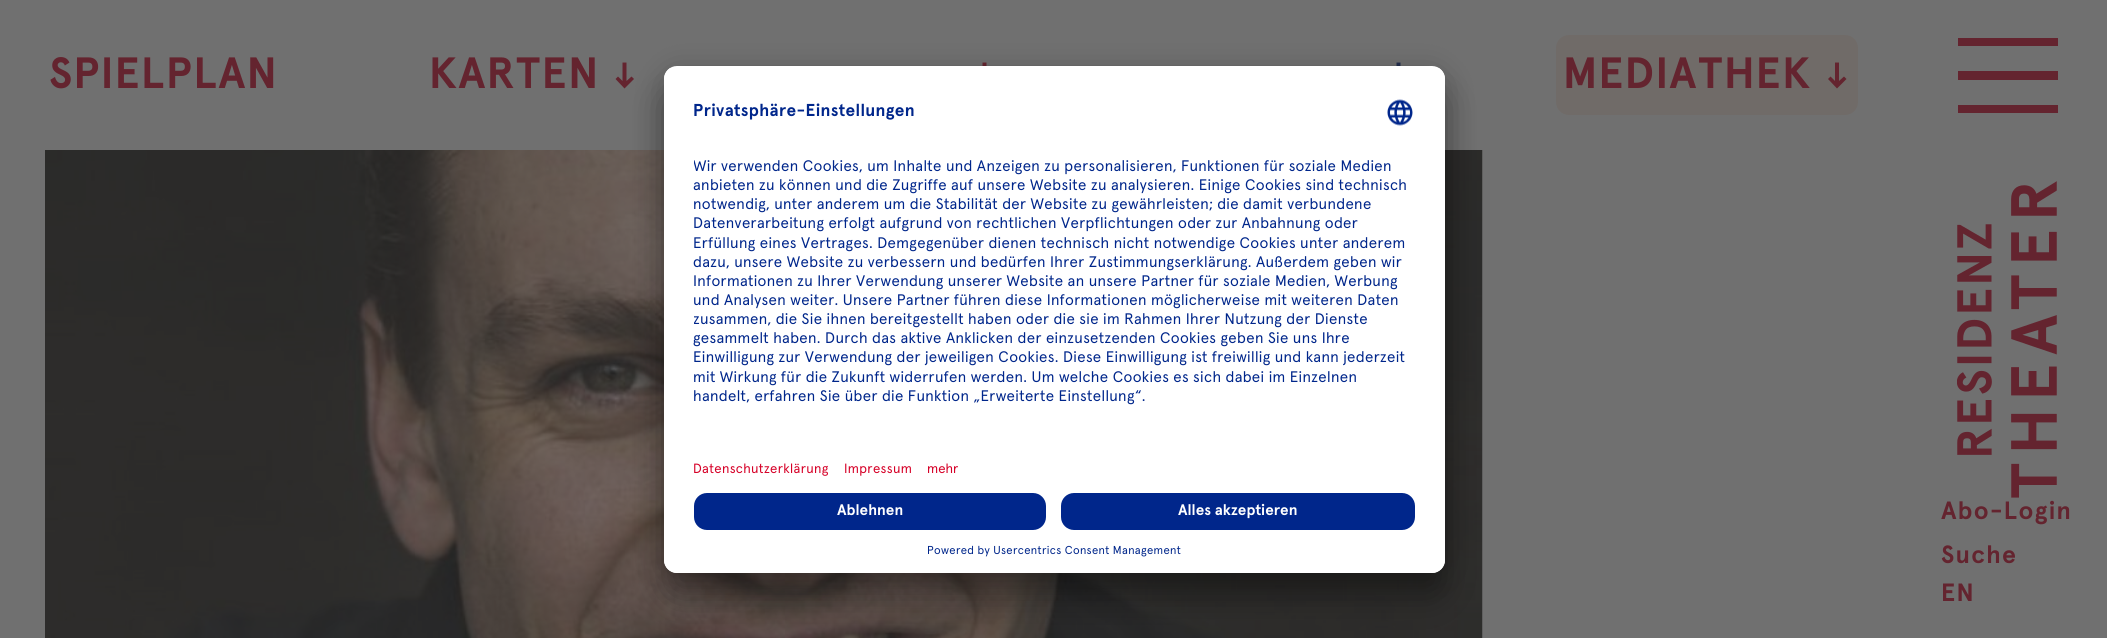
#include <cairo.h>
#include <math.h>
#include <stddef.h>

static cairo_t *c;
static void C(unsigned color){cairo_set_source_rgb(c, (color >> 16) / 255.0, (color >> 8 & 255) / 255.0, (color & 255) / 255.0);}
static void F(const char *family, double size, int italic, int bold){cairo_select_font_face(c, family, italic ? CAIRO_FONT_SLANT_ITALIC : CAIRO_FONT_SLANT_NORMAL,bold ? CAIRO_FONT_WEIGHT_BOLD : CAIRO_FONT_WEIGHT_NORMAL);cairo_set_font_size(c, size);}
static void T(double x, double y, const char *s){cairo_move_to(c, x, y);cairo_show_text(c, s);}
static void L(double x, double y, const char *s, double letter, double word){cairo_move_to(c, x, y);while (*s) {char ch[5] = {0};int n = 0;do ch[n++] = *s++; while ((*s & 0xC0) == 0x80);cairo_show_text(c, ch);cairo_rel_move_to(c, letter + word * (*ch == ' '), 0);}}
static void R(double x, double y, double w, double h){cairo_rectangle(c, x, y, w, h);cairo_fill(c);}
static void Q(double x, double y, double w, double h, double r){cairo_new_sub_path(c);cairo_arc(c, x + w - r, y + h - r, r, 0, M_PI / 2);cairo_arc(c, x + r, y + h - r, r, M_PI / 2, M_PI);cairo_arc(c, x + r, y + r, r, M_PI, 1.5 * M_PI);cairo_arc(c, x + w - r, y + r, r, 1.5 * M_PI, 2 * M_PI);cairo_close_path(c);}
static void S(double x, double y, double w, double h, double r, double blur, double alpha){cairo_push_group_with_content(c, CAIRO_CONTENT_ALPHA);cairo_set_operator(c, CAIRO_OPERATOR_SOURCE);for (int i = 15; i >= -15 && fmin(w, h) + blur * i / 3 > 0; i -= 2) {double e = blur * i / 6;cairo_set_source_rgba(c, 0, 0, 0, alpha * erfc((i - 1) / 8.5) / 2);Q(x - e, y - e, w + 2 * e, h + 2 * e, fmax(0, fmin(r + e + blur * .6, fmin(w, h) / 2 + e)));cairo_fill(c);}cairo_pattern_t *soft = cairo_pop_group(c);cairo_mask(c, soft);cairo_pattern_destroy(soft);}
static void I(const char *path, double x, double y, double w, double h){cairo_surface_t *image = cairo_image_surface_create_from_png(path);cairo_save(c);cairo_set_source_surface(c, image, x, y);cairo_rectangle(c, x, y, w, h);cairo_fill(c);cairo_restore(c);cairo_surface_destroy(image);}
int main(void) {
cairo_surface_t *surface = cairo_image_surface_create(CAIRO_FORMAT_RGB24, 2107, 638);
c = cairo_create(surface);
cairo_font_options_t *options = cairo_font_options_create();
cairo_font_options_set_hint_metrics(options, CAIRO_HINT_METRICS_OFF);
cairo_font_options_set_hint_style(options, CAIRO_HINT_STYLE_NONE);
cairo_set_font_options(c, options);
cairo_set_miter_limit(c, 4);
C(0x707070);
cairo_paint(c);
C(0x64242f);
R(1958,71,100,9);
R(1958,38,100,8);
R(1958,105,100,8);
F("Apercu",43.75,0,1);
L(49,88,"SPIELPLAN",1.25,0);
L(429,88,"KARTEN",1.25,0);
cairo_new_path(c);
cairo_move_to(c,624.5,88.5);
cairo_line_to(c,634,79);
cairo_line_to(c,631.5,76.5);
cairo_line_to(c,626.5,81);
cairo_line_to(c,626.5,62.5);
cairo_line_to(c,622.5,62.5);
cairo_line_to(c,622.5,81);
cairo_line_to(c,618,76.5);
cairo_line_to(c,615.5,79);
cairo_close_path(c);
cairo_fill(c);
cairo_new_path(c);
cairo_move_to(c,984.5,88.5);
cairo_line_to(c,994,79);
cairo_line_to(c,991.5,76.5);
cairo_line_to(c,986.5,81);
cairo_line_to(c,986.5,62.5);
cairo_line_to(c,982.5,62.5);
cairo_line_to(c,982.5,81);
cairo_line_to(c,978,76.5);
cairo_line_to(c,975.5,79);
cairo_close_path(c);
cairo_fill(c);
C(0x242f4d);
cairo_new_path(c);
cairo_move_to(c,1398.5,88.5);
cairo_line_to(c,1408,79);
cairo_line_to(c,1405,76.5);
cairo_line_to(c,1400.5,81);
cairo_line_to(c,1400.5,62.5);
cairo_line_to(c,1396.5,62.5);
cairo_line_to(c,1396.5,81);
cairo_line_to(c,1391.5,76.5);
cairo_line_to(c,1389,79);
cairo_close_path(c);
cairo_fill(c);
C(0x706b68);
Q(1556,35,302,80,13);
cairo_fill(c);
C(0x64242f);
L(1563,88,"MEDIATHEK",1.25,0);
cairo_new_path(c);
cairo_move_to(c,1837,88.5);
cairo_line_to(c,1846.5,79);
cairo_line_to(c,1844,76.5);
cairo_line_to(c,1839,81);
cairo_line_to(c,1839,62.5);
cairo_line_to(c,1835,62.5);
cairo_line_to(c,1835,81);
cairo_line_to(c,1830.5,76.5);
cairo_line_to(c,1828,79);
cairo_close_path(c);
cairo_fill(c);
F("Apercu",25,0,1);
L(1941,519,"Abo-Login",1.25,0);
L(1941,563,"Suche",1.25,0);
L(1941,601,"EN",1.25,0);
I("1.png",1957,181,100,317);
I("2.png",45,150,1438,488);
C(0x000000);
S(664,91,781,507,13,17.5,.3);
S(664,73,781,506,13,16,.22);
C(0xffffff);
Q(664,66,781,507,13);
cairo_fill(c);
cairo_save(c);
Q(664,66,781,507,13);
cairo_clip(c);
cairo_new_path(c);
cairo_move_to(c,677,66);
cairo_line_to(c,1432,66);
cairo_curve_to(c,1439,66,1445,72,1445,79);
cairo_line_to(c,1445,483);
cairo_line_to(c,664,483);
cairo_line_to(c,664,79);
cairo_curve_to(c,664,72,670,66,677,66);
cairo_close_path(c);
cairo_clip(c);
R(664,68,781,415);
cairo_restore(c);
F("Apercu",17.25,0,1);
C(0x00268b);
L(693,116,"Privatsphäre-Einstellungen",.33,0);
I("3.png",1387,99,26,27);
cairo_save(c);
cairo_rectangle(c,694,138,721,288);
cairo_clip(c);
F("Apercu",15.3,0,0);
L(693,171,"Wir verwenden Cookies, um Inhalte und Anzeigen zu personalisieren, Funktionen für soziale Medien",.33,0);
cairo_restore(c);
F("Apercu",15.3,0,0);
L(693,190,"anbieten zu können und die Zugriffe auf unsere Website zu analysieren. Einige Cookies sind technisch",.33,0);
L(693,209,"notwendig, unter anderem um die Stabilität der Website zu gewährleisten; die damit verbundene",.33,0);
L(693,228,"Datenverarbeitung erfolgt aufgrund von rechtlichen Verpflichtungen oder zur Anbahnung oder",.33,0);
L(693,248,"Erfüllung eines Vertrages. Demgegenüber dienen technisch nicht notwendige Cookies unter anderem",.33,0);
L(693,267,"dazu, unsere Website zu verbessern und bedürfen Ihrer Zustimmungserklärung. Außerdem geben wir",.33,0);
L(693,286,"Informationen zu Ihrer Verwendung unserer Website an unsere Partner für soziale Medien, Werbung",.33,0);
L(693,305,"und Analysen weiter. Unsere Partner führen diese Informationen möglicherweise mit weiteren Daten",.33,0);
cairo_save(c);
cairo_rectangle(c,694,138,721,288);
cairo_clip(c);
L(693,324,"zusammen, die Sie ihnen bereitgestellt haben oder die sie im Rahmen Ihrer Nutzung der Dienste",.33,0);
cairo_restore(c);
L(693,343,"gesammelt haben. Durch das aktive Anklicken der einzusetzenden Cookies geben Sie uns Ihre",.33,0);
L(693,362,"Einwilligung zur Verwendung der jeweiligen Cookies. Diese Einwilligung ist freiwillig und kann jederzeit",.33,0);
L(693,382,"mit Wirkung für die Zukunft widerrufen werden. Um welche Cookies es sich dabei im Einzelnen",.33,0);
L(693,401,"handelt, erfahren Sie über die Funktion „Erweiterte Einstellung“.",.33,0);
F("Apercu",13.4,0,0);
C(0xd60027);
L(693,473,"Datenschutzerklärung",.33,0);
L(844,473,"Impressum",.33,0);
T(927,473,"mehr");
C(0xffffff);
cairo_new_path(c);
cairo_move_to(c,664,483);
cairo_line_to(c,1445,483);
cairo_line_to(c,1445,560);
cairo_curve_to(c,1445,567,1439,573,1432,573);
cairo_line_to(c,677,573);
cairo_curve_to(c,670,573,664,567,664,560);
cairo_close_path(c);
cairo_fill(c);
C(0x00268b);
Q(694,493,352,37,13);
cairo_fill(c);
F("Apercu",15.3,0,1);
C(0xffffff);
T(837,515,"Ablehnen");
C(0x00268b);
Q(1061,493,354,37,13);
cairo_fill(c);
C(0xffffff);
T(1178,515,"Alles akzeptieren");
F("Apercu",11.5,0,0);
C(0x00268b);
L(927,554,"Powered by Usercentrics Consent Management",.33,0);
cairo_surface_write_to_png(surface, "o.png");
cairo_font_options_destroy(options);
cairo_destroy(c);
cairo_surface_destroy(surface);
return 0;
}
